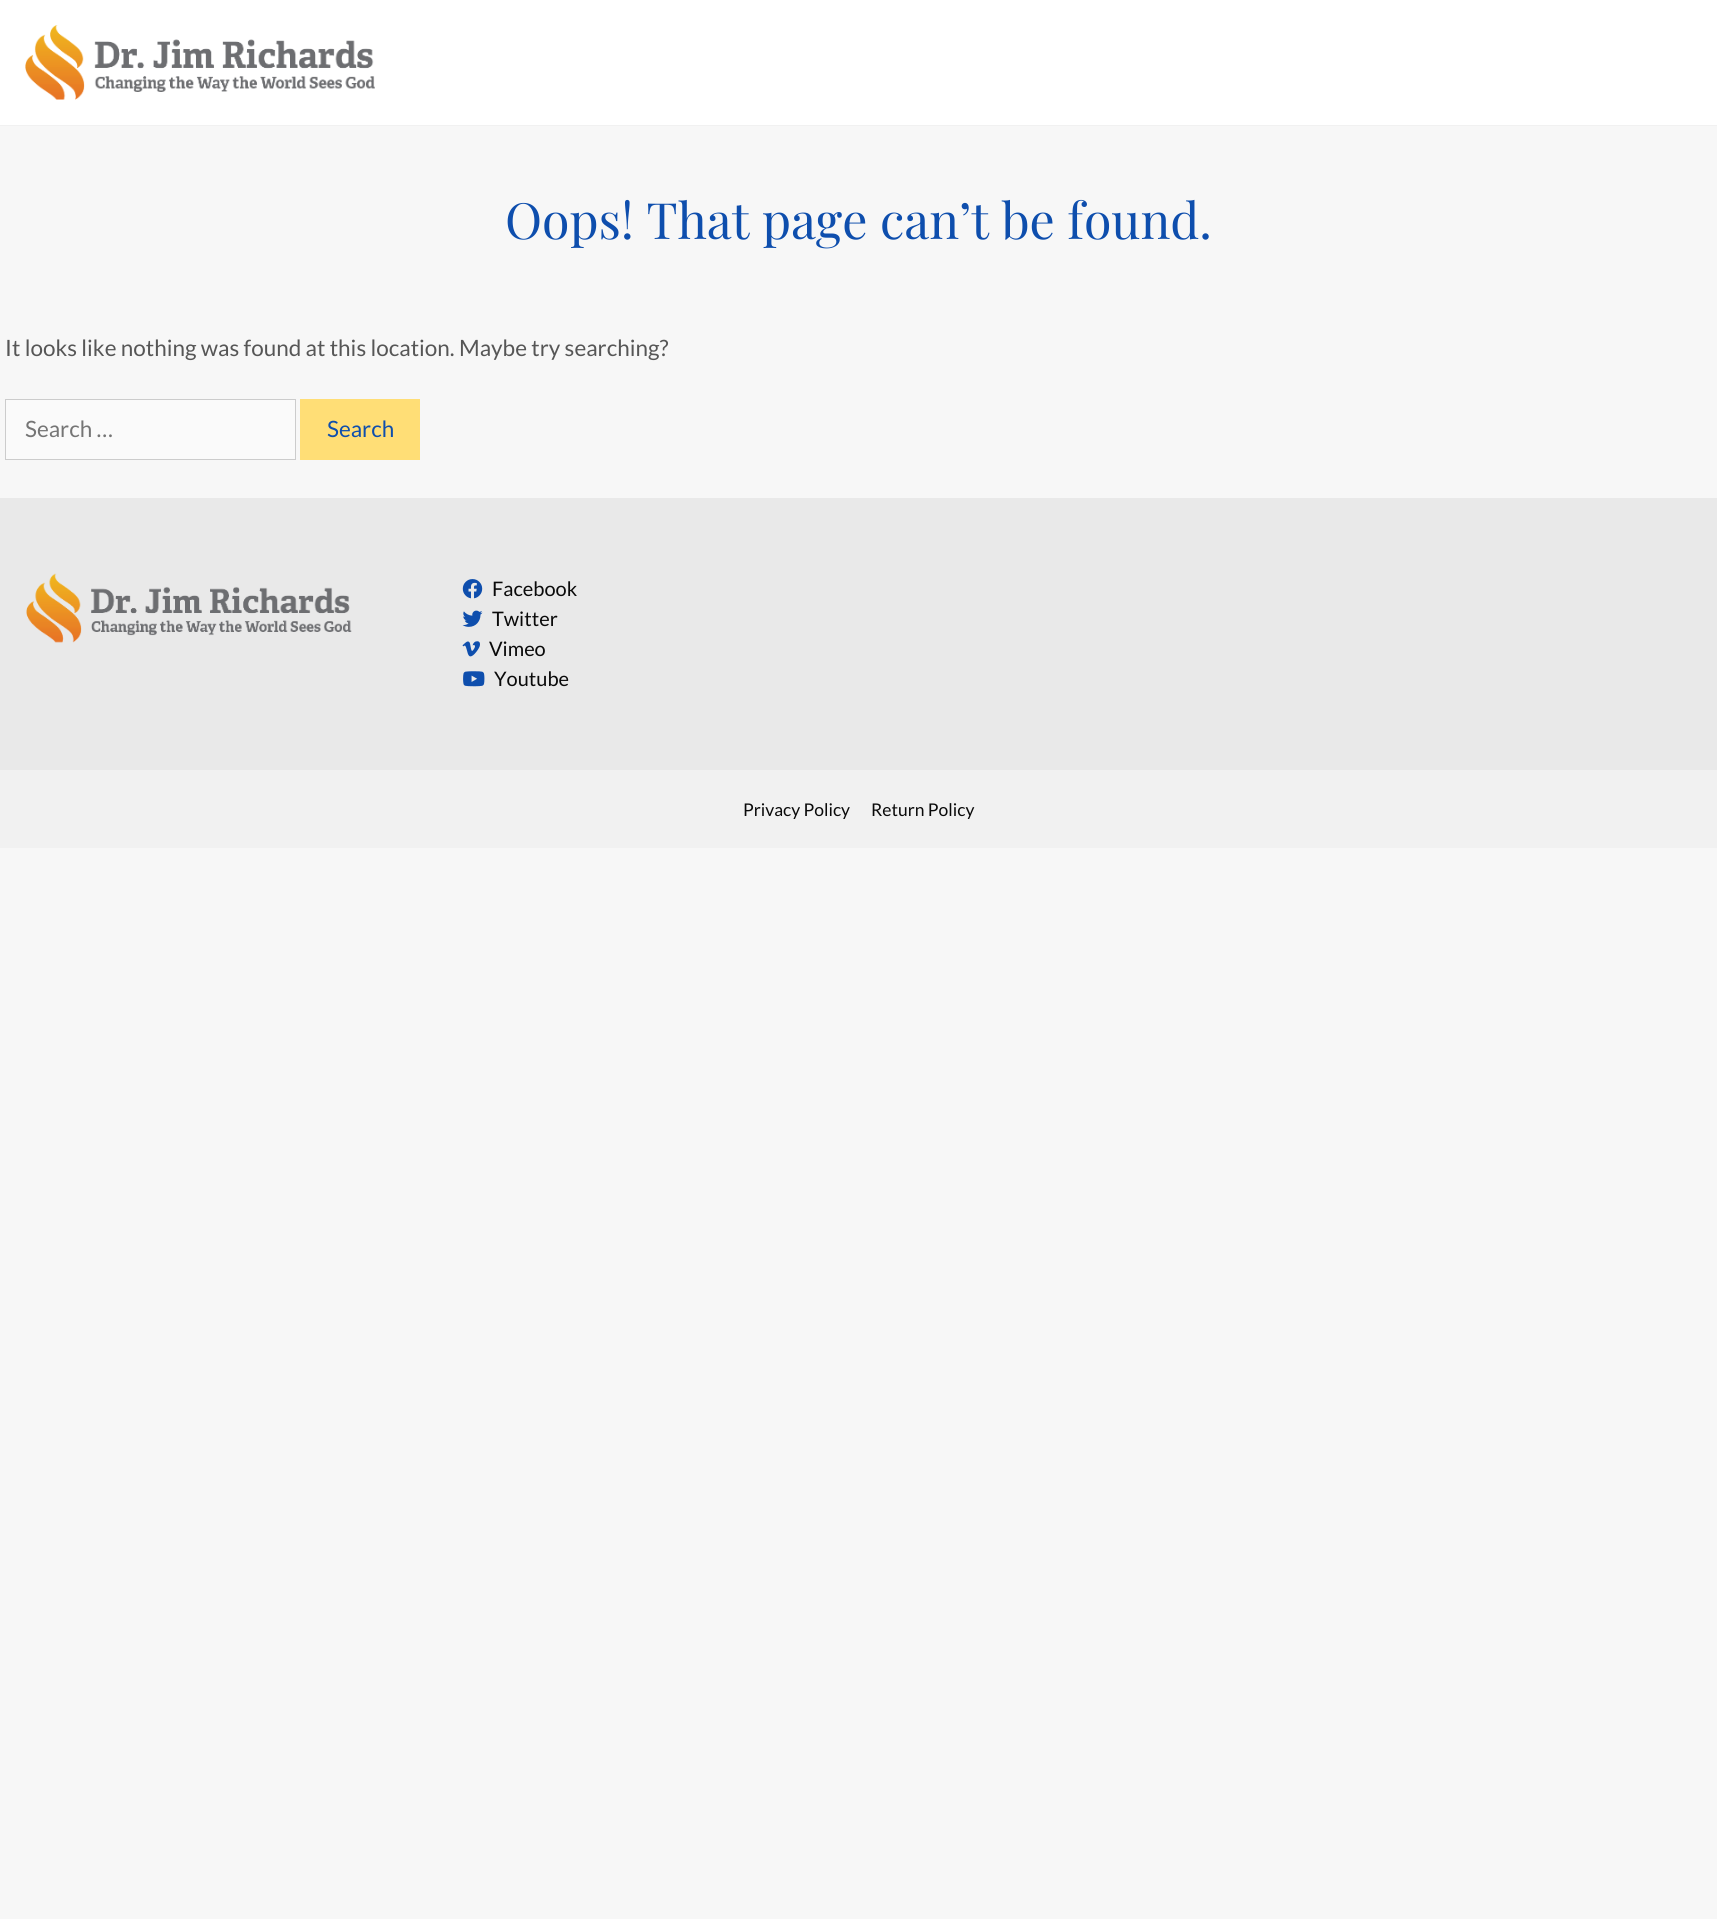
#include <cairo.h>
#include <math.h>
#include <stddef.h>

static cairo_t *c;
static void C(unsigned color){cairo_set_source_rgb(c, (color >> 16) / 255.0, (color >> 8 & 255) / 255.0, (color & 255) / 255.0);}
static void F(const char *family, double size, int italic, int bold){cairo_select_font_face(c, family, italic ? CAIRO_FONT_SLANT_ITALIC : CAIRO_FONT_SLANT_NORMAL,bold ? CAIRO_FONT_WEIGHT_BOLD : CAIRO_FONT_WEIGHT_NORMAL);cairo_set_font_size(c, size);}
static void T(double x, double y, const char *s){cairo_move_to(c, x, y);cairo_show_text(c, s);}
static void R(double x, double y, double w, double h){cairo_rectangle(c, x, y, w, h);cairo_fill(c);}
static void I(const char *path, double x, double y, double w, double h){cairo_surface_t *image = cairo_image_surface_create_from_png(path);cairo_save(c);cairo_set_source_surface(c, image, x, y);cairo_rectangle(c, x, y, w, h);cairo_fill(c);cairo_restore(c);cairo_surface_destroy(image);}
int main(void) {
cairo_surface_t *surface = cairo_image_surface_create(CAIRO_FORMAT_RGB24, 1717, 1919);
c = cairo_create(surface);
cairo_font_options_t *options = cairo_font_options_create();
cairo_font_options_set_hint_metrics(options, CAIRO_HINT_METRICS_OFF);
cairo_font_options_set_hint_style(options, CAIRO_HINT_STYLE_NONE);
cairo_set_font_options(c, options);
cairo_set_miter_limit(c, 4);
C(0xf7f7f7);
cairo_paint(c);
C(0xffffff);
R(0,0,1717,125);
C(0xf1f1f1);
R(0,125,1717,1);
I("1.png",25,25,350,75);
F("Playfair Display",50,0,0);
C(0x0e4ead);
T(505,239,"Oops! That page can’t be found.");
F("Lato",22.5,0,0);
C(0x565656);
T(5,356,"It looks like nothing was found at this location. Maybe try searching?");
C(0xfafafa);
cairo_rectangle(c,5.5,399.5,290,60);
cairo_fill_preserve(c);
C(0xcccccc);
cairo_set_line_width(c,1);
cairo_stroke(c);
C(0x757575);
T(25,437,"Search …");
C(0xffde76);
R(300,399,120,61);
C(0x0e4ead);
T(327,437,"Search");
C(0xe9e9e9);
R(0,498,1717,272);
I("2.png",26,573,326,70);
I("3.png",462,579,21,20);
F("Lato",20,0,0);
C(0x0a0a0a);
T(492,596,"Facebook");
I("4.png",462,610,21,17);
T(492,626,"Twitter");
I("5.png",462,641,18,16);
T(489,656,"Vimeo");
I("6.png",463,671,22,16);
T(494,686,"Youtube");
C(0xf1f1f1);
R(0,770,1717,78);
F("Lato",17.5,0,0);
C(0x0a0a0a);
T(743,816,"Privacy Policy");
T(871,816,"Return Policy");
cairo_surface_write_to_png(surface, "o.png");
cairo_font_options_destroy(options);
cairo_destroy(c);
cairo_surface_destroy(surface);
return 0;
}
